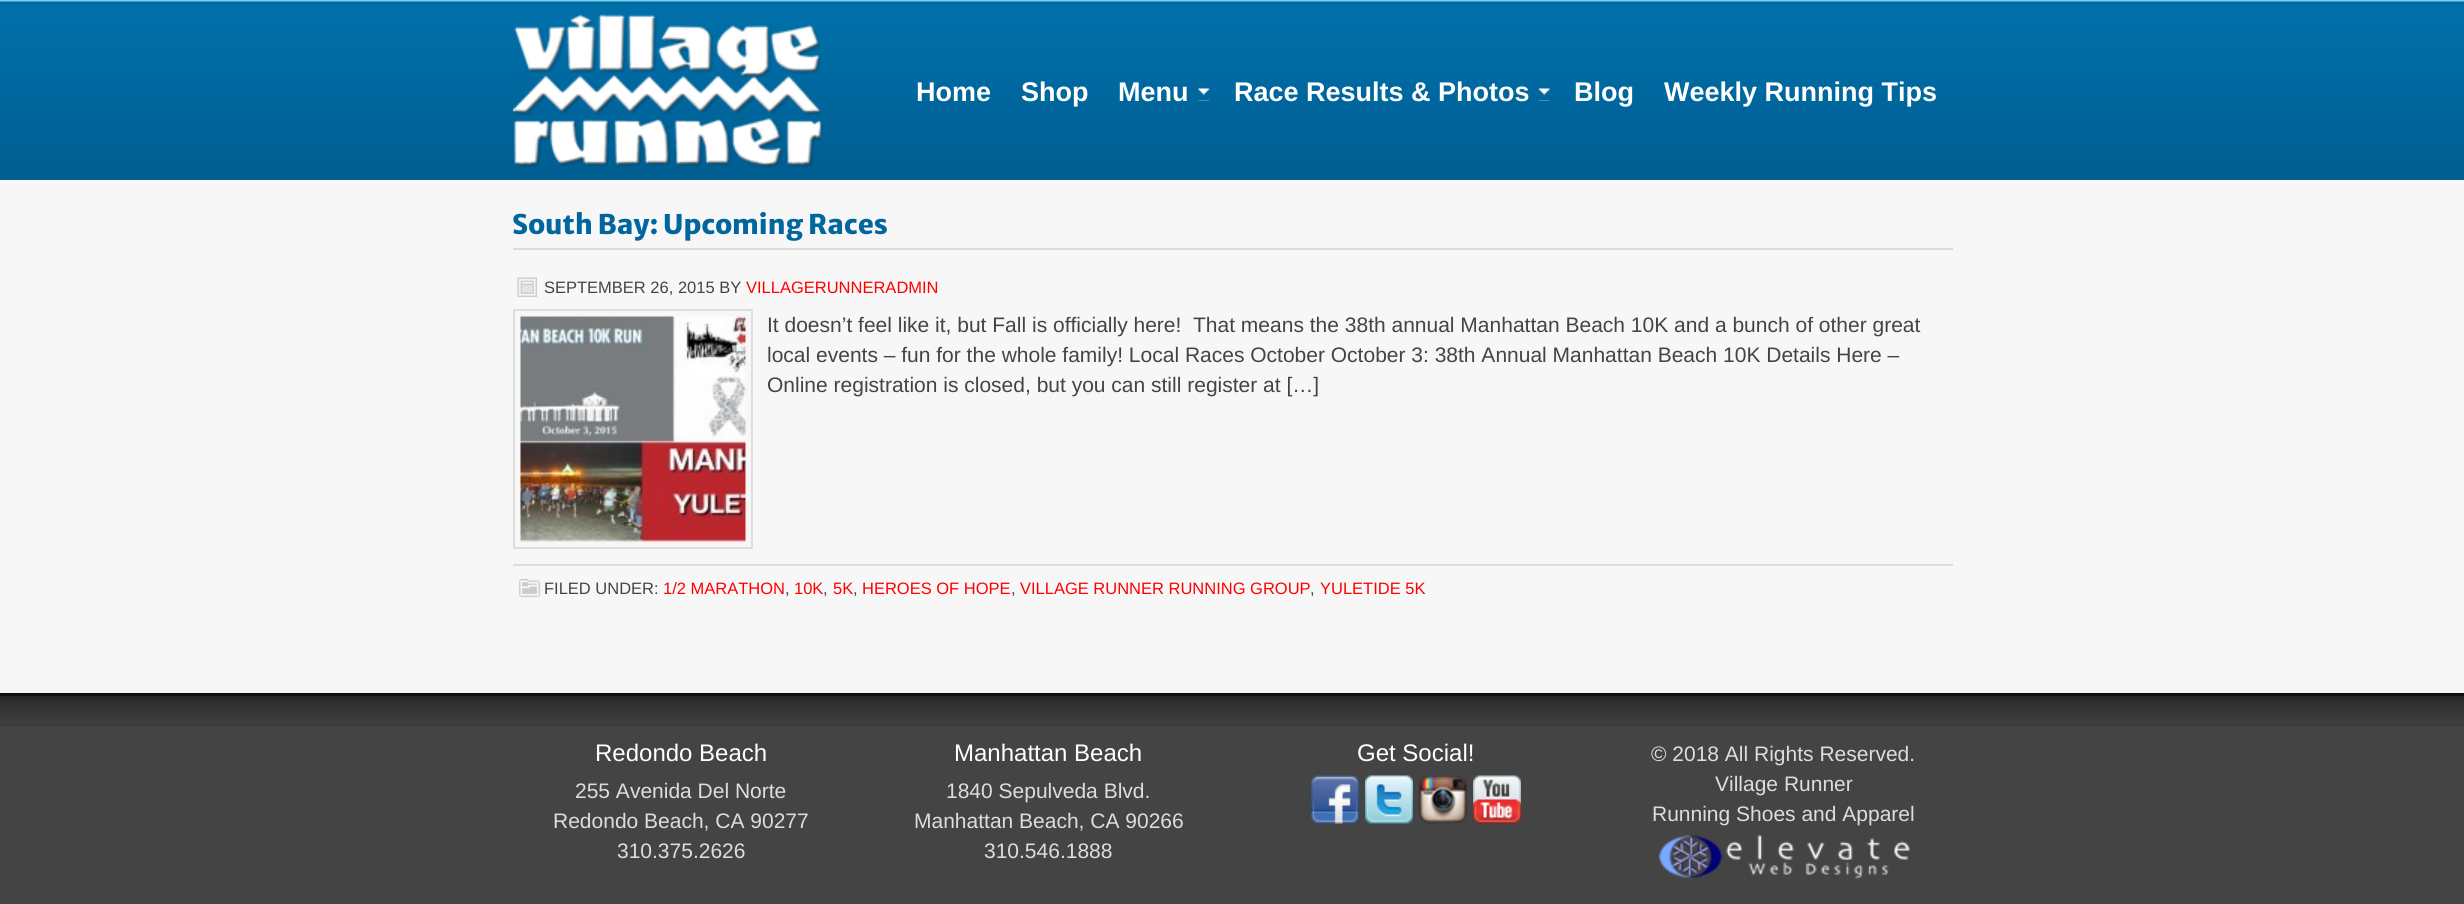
#include <cairo.h>
#include <math.h>
#include <stddef.h>

static cairo_t *c;
static void C(unsigned color){cairo_set_source_rgb(c, (color >> 16) / 255.0, (color >> 8 & 255) / 255.0, (color & 255) / 255.0);}
static void F(const char *family, double size, int italic, int bold){cairo_select_font_face(c, family, italic ? CAIRO_FONT_SLANT_ITALIC : CAIRO_FONT_SLANT_NORMAL,bold ? CAIRO_FONT_WEIGHT_BOLD : CAIRO_FONT_WEIGHT_NORMAL);cairo_set_font_size(c, size);}
static void T(double x, double y, const char *s){cairo_move_to(c, x, y);cairo_show_text(c, s);}
static void R(double x, double y, double w, double h){cairo_rectangle(c, x, y, w, h);cairo_fill(c);}
static void I(const char *path, double x, double y, double w, double h){cairo_surface_t *image = cairo_image_surface_create_from_png(path);cairo_save(c);cairo_set_source_surface(c, image, x, y);cairo_rectangle(c, x, y, w, h);cairo_fill(c);cairo_restore(c);cairo_surface_destroy(image);}
int main(void) {
cairo_surface_t *surface = cairo_image_surface_create(CAIRO_FORMAT_RGB24, 2464, 904);
c = cairo_create(surface);
cairo_font_options_t *options = cairo_font_options_create();
cairo_font_options_set_hint_metrics(options, CAIRO_HINT_METRICS_OFF);
cairo_font_options_set_hint_style(options, CAIRO_HINT_STYLE_NONE);
cairo_set_font_options(c, options);
cairo_set_miter_limit(c, 4);
C(0xf7f7f7);
cairo_paint(c);
I("1.png",0,0,2464,180);
I("2.png",513,14,308,154);
F("Liberation Sans",27,0,1);
C(0xffffff);
T(916,101,"Home");
T(1021,101,"Shop");
T(1118,101,"Menu");
I("3.png",1198,88,12,13);
T(1234,101,"Race Results & Photos");
I("4.png",1538,88,12,13);
T(1574,101,"Blog");
T(1664,101,"Weekly Running Tips");
C(0xdddddd);
R(513,248,1440,2);
F("Merriweather Sans ExtraBold",27,0,0);
C(0x00669d);
T(512,234,"South Bay: Upcoming Races");
I("5.png",517,277,20,20);
F("Liberation Sans",16.5,0,0);
C(0x444444);
T(544,293,"SEPTEMBER 26, 2015 BY");
C(0xff0000);
T(746,293,"VILLAGERUNNERADMIN");
cairo_rectangle(c,514,310,238,238);
C(0xdddddd);
cairo_stroke(c);
I("6.png",520,316,226,226);
F("Liberation Sans",21,0,0);
C(0x444444);
T(767,332,"It doesn’t feel like it, but Fall is officially here!  That means the 38th annual Manhattan Beach 10K and a bunch of other great");
T(767,362,"local events – fun for the whole family! Local Races October October 3: 38th Annual Manhattan Beach 10K Details Here –");
T(767,392,"Online registration is closed, but you can still register at […]");
C(0xdddddd);
R(513,564,1440,2);
I("7.png",518,579,23,19);
F("Liberation Sans",16.5,0,0);
C(0x444444);
T(544,594,"FILED UNDER:");
C(0xff0000);
T(663,594,"1/2 MARATHON");
C(0x444444);
T(785,594,",");
C(0xff0000);
T(794,594,"10K");
C(0x444444);
T(823,594,",");
C(0xff0000);
T(833,594,"5K");
C(0x444444);
T(853,594,",");
C(0xff0000);
T(862,594,"HEROES OF HOPE");
C(0x444444);
T(1011,594,",");
C(0xff0000);
T(1020,594,"VILLAGE RUNNER RUNNING GROUP");
C(0x444444);
T(1310,594,",");
C(0xff0000);
T(1320,594,"YULETIDE 5K");
C(0x444444);
R(0,727,2464,177);
I("8.png",0,693,2464,34);
F("Liberation Sans",24,0,0);
C(0xffffff);
T(595,761,"Redondo Beach");
F("Liberation Sans",21,0,0);
C(0xdddddd);
T(575,798,"255 Avenida Del Norte");
T(553,828,"Redondo Beach, CA 90277");
T(617,858,"310.375.2626");
F("Liberation Sans",24,0,0);
C(0xffffff);
T(954,761,"Manhattan Beach");
F("Liberation Sans",21,0,0);
C(0xdddddd);
T(946,798,"1840 Sepulveda Blvd.");
T(914,828,"Manhattan Beach, CA 90266");
T(984,858,"310.546.1888");
F("Liberation Sans",24,0,0);
C(0xffffff);
T(1357,761,"Get Social!");
I("9.png",1311,775,48,49);
I("10.png",1365,775,48,49);
I("11.png",1419,775,48,49);
I("12.png",1473,775,48,49);
F("Liberation Sans",21,0,0);
C(0xdddddd);
T(1651,761,"© 2018 All Rights Reserved.");
T(1715,791,"Village Runner");
T(1652,821,"Running Shoes and Apparel");
I("13.png",1658,835,252,45);
cairo_surface_write_to_png(surface, "o.png");
cairo_font_options_destroy(options);
cairo_destroy(c);
cairo_surface_destroy(surface);
return 0;
}
